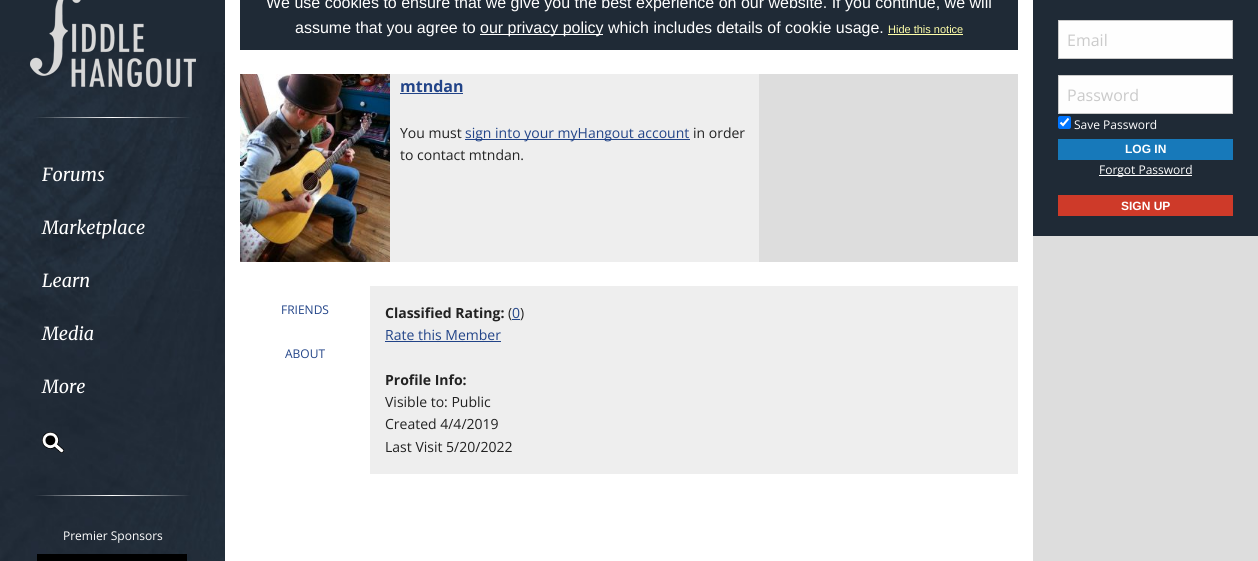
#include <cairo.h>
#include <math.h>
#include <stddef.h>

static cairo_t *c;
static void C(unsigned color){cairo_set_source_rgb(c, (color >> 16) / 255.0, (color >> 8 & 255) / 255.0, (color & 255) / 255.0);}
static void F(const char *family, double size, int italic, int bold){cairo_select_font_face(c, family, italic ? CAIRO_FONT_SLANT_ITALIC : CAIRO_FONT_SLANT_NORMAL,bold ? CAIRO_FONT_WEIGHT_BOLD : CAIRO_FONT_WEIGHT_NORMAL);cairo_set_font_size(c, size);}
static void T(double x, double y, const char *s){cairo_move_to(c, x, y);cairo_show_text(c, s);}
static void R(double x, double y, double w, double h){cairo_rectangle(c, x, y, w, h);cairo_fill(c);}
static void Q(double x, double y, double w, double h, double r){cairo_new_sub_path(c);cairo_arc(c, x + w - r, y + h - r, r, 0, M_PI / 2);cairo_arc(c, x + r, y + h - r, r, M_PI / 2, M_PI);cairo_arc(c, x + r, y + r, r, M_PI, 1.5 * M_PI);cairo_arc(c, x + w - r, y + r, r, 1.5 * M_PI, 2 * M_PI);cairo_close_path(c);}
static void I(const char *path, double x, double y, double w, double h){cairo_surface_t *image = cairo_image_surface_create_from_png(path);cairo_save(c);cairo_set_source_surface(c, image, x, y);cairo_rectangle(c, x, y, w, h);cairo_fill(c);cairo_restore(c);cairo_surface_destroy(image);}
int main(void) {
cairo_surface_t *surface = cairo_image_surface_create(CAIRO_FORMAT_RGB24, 1258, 561);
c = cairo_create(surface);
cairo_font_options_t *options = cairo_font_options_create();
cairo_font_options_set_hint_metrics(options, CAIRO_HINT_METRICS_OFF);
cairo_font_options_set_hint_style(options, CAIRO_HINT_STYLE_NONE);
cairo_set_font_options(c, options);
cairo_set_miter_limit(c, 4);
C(0xffffff);
cairo_paint(c);
C(0x1f2a36);
R(240,0,778,50);
F("Liberation Sans",16,0,0);
C(0xffffff);
T(266,8,"We use cookies to ensure that we give you the best experience on our website. If you continue, we will");
T(295,33,"assume that you agree to");
R(480,34,123,1);
T(480,33,"our privacy policy which includes details of cookie usage.");
F("Liberation Sans",11,0,0);
C(0xffffaa);
T(888,33,"Hide this notice");
R(888,34,75,1);
C(0xdddddd);
R(759,74,259,188);
I("1.png",240,74,150,188);
C(0xeeeeee);
R(390,74,369,188);
F("Open Sans",16,0,1);
C(0x224488);
T(400,92,"mtndan");
R(400,93,63,1);
F("Open Sans",14,0,0);
C(0x222222);
T(400,138,"You must");
C(0x224488);
R(465,139,225,1);
T(465,138,"sign into your myHangout account");
C(0x222222);
T(693,138,"in order");
T(400,160,"to contact mtndan.");
F("Open Sans",12,0,0);
C(0x224488);
T(281,314,"FRIENDS");
T(285,358,"ABOUT");
C(0xeeeeee);
R(370,286,648,188);
F("Open Sans",14,0,1);
C(0x222222);
T(385,318,"Classified Rating:");
F("Open Sans",14,0,0);
T(508,318,"(");
C(0x224488);
T(512,318,"0");
R(512,319,8,1);
C(0x222222);
T(520,318,")");
C(0x224488);
T(385,340,"Rate this Member");
R(385,341,116,1);
F("Open Sans",14,0,1);
C(0x222222);
T(385,385,"Profile Info:");
F("Open Sans",14,0,0);
T(385,407,"Visible to: Public");
T(385,429,"Created 4/4/2019");
T(385,452,"Last Visit 5/20/2022");
C(0xdddddd);
R(1033,236,225,325);
C(0x1f2a36);
R(1033,0,225,236);
C(0xfefefe);
cairo_rectangle(c,1058.5,20.5,174,38);
cairo_fill_preserve(c);
C(0xcacaca);
cairo_set_line_width(c,1);
cairo_stroke(c);
F("Open Sans",16,0,0);
T(1067,46,"Email");
C(0xfefefe);
cairo_rectangle(c,1058.5,75.5,174,38);
cairo_fill_preserve(c);
C(0xcacaca);
cairo_stroke(c);
T(1067,101,"Password");
C(0x0075ff);
Q(1058,116,13,13,2);
cairo_fill(c);
cairo_new_path(c);
cairo_move_to(c,1060.5,122.5);
cairo_line_to(c,1063,125);
cairo_line_to(c,1068.5,118.5);
C(0xffffff);
cairo_set_line_width(c,2.1);
cairo_stroke(c);
F("Open Sans",12,0,0);
T(1074,129,"Save Password");
C(0x1779ba);
R(1058,139,175,21);
F("Liberation Sans",12,0,1);
C(0xffffff);
T(1125,153,"LOG IN");
R(1099,175,93,1);
F("Open Sans",12,0,0);
T(1099,174,"Forgot Password");
C(0xce3a29);
R(1058,195,175,21);
F("Liberation Sans",12,0,1);
C(0xffffff);
T(1121,210,"SIGN UP");
C(0x1f2a36);
R(0,0,225,52);
I("2.png",0,52,225,509);
I("3.png",30,0,166,87);
F("Merriweather",18,1,0);
C(0xffffff);
T(42,181,"Forums");
T(42,234,"Marketplace");
T(42,287,"Learn");
T(42,340,"Media");
T(42,393,"More");
I("4.png",42,432,22,21);
F("Open Sans",12,0,0);
T(63,540,"Premier Sponsors");
C(0x000000);
R(37,554,150,7);
cairo_surface_write_to_png(surface, "o.png");
cairo_font_options_destroy(options);
cairo_destroy(c);
cairo_surface_destroy(surface);
return 0;
}
